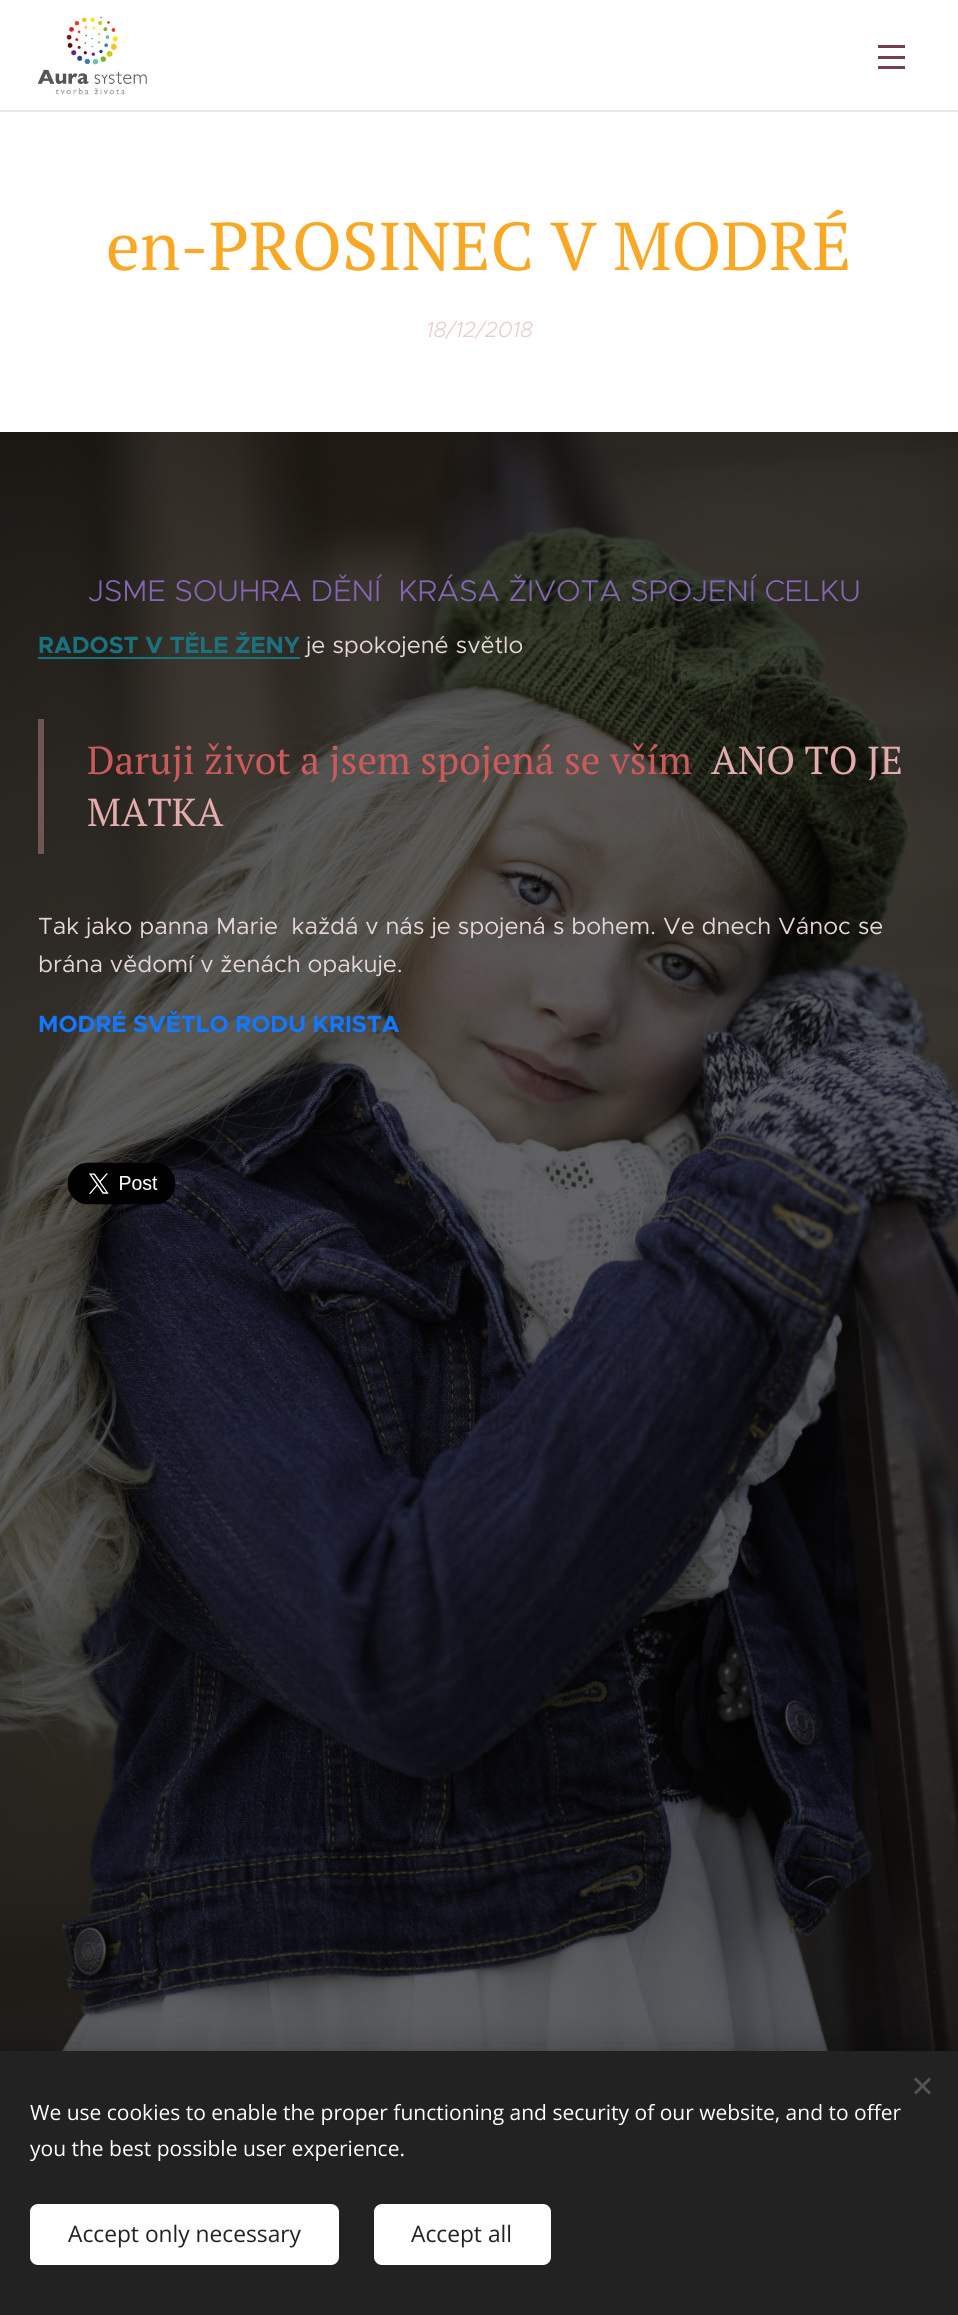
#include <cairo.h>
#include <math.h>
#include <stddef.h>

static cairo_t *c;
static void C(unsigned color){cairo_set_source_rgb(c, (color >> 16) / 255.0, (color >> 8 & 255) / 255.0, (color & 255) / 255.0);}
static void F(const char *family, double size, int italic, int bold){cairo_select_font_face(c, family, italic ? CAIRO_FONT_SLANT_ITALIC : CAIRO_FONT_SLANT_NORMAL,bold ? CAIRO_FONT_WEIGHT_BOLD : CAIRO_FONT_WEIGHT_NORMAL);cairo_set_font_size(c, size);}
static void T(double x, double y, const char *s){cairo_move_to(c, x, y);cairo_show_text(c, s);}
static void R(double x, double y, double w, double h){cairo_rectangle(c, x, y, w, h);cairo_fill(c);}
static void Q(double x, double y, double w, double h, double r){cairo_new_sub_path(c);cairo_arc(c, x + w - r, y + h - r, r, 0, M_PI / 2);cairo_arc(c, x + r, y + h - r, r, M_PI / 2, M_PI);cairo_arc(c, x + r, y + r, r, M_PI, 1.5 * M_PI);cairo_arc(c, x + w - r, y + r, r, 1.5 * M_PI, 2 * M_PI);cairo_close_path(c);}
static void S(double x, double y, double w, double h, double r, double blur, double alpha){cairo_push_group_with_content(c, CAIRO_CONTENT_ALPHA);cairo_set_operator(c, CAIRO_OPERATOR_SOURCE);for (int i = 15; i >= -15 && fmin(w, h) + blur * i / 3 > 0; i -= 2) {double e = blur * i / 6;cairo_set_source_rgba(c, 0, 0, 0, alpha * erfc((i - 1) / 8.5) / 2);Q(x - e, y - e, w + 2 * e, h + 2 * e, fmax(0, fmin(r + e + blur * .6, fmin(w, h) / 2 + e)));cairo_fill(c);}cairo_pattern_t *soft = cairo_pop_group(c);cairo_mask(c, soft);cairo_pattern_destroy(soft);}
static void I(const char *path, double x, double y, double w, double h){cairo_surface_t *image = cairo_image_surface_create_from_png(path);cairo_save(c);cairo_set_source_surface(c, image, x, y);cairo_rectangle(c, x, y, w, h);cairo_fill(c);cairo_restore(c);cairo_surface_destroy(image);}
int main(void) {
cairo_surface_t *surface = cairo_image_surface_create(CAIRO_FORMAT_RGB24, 958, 2315);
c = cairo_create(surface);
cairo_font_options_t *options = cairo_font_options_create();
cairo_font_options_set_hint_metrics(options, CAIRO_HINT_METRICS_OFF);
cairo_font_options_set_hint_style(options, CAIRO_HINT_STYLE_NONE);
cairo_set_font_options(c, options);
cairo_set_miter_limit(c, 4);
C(0xffffff);
cairo_paint(c);
I("1.png",37,16,110,79);
C(0x773c4e);
R(878,56,27,3);
R(878,45,27,3);
R(878,66,27,3);
C(0xe8e8e8);
R(0,110,958,2);
F("PT Serif",67.5,0,0);
C(0xf9a825);
T(106,270,"en-PROSINEC V MODRÉ");
F("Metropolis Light",22,1,0);
C(0xe9cccc);
T(426,337,"18/12/2018");
I("2.png",0,432,958,1619);
F("Metropolis Light",30,0,0);
C(0x8566b4);
T(88,601,"JSME SOUHRA DĚNÍ  KRÁSA ŽIVOTA SPOJENÍ CELKU");
F("Metropolis",23.55,0,1);
C(0x1a727e);
T(38,653,"RADOST V TĚLE ŽENY");
R(38,657,262,2);
F("Metropolis",23.55,0,0);
C(0xe6d7d7);
T(306,653,"je spokojené světlo");
cairo_set_source_rgba(c,0.714,0.525,0.525,0.5);
R(38,719,6,135);
F("PT Serif",39,0,0);
C(0xcc5a5a);
T(87,774,"Daruji život a jsem spojená se vším");
C(0xe4acac);
T(711,774,"ANO TO JE");
T(87,826,"MATKA");
F("Metropolis",23.55,0,0);
C(0xe6d7d7);
T(38,934,"Tak jako panna Marie  každá v nás je spojená s bohem. Ve dnech Vánoc se");
T(38,972,"brána vědomí v ženách opakuje.");
F("Metropolis",23.55,0,1);
C(0x1278ff);
T(38,1032,"MODRÉ SVĚTLO RODU KRISTA");
I("3.png",67,1162,109,43);
C(0x000000);
S(0,2051,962,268,0,19,.33);
C(0x222222);
R(0,2051,958,264);
C(0x555555);
cairo_new_path(c);
cairo_move_to(c,914,2092.5);
cairo_line_to(c,929,2077.5);
cairo_line_to(c,931,2079.5);
cairo_line_to(c,916,2094.5);
cairo_close_path(c);
cairo_fill(c);
cairo_new_path(c);
cairo_move_to(c,916,2077.5);
cairo_line_to(c,931,2092.5);
cairo_line_to(c,929,2094.5);
cairo_line_to(c,914,2079.5);
cairo_close_path(c);
cairo_fill(c);
F("Open Sans",21,0,0);
C(0xffffff);
T(30,2120,"We use cookies to enable the proper functioning and security of our website, and to offer");
T(30,2156,"you the best possible user experience.");
Q(30,2204,309,61,8);
cairo_fill(c);
F("Open Sans",22.75,0,0);
C(0x222222);
T(68,2242,"Accept only necessary");
C(0xffffff);
Q(374,2204,177,61,8);
cairo_fill(c);
C(0x222222);
T(411,2242,"Accept all");
cairo_surface_write_to_png(surface, "o.png");
cairo_font_options_destroy(options);
cairo_destroy(c);
cairo_surface_destroy(surface);
return 0;
}
